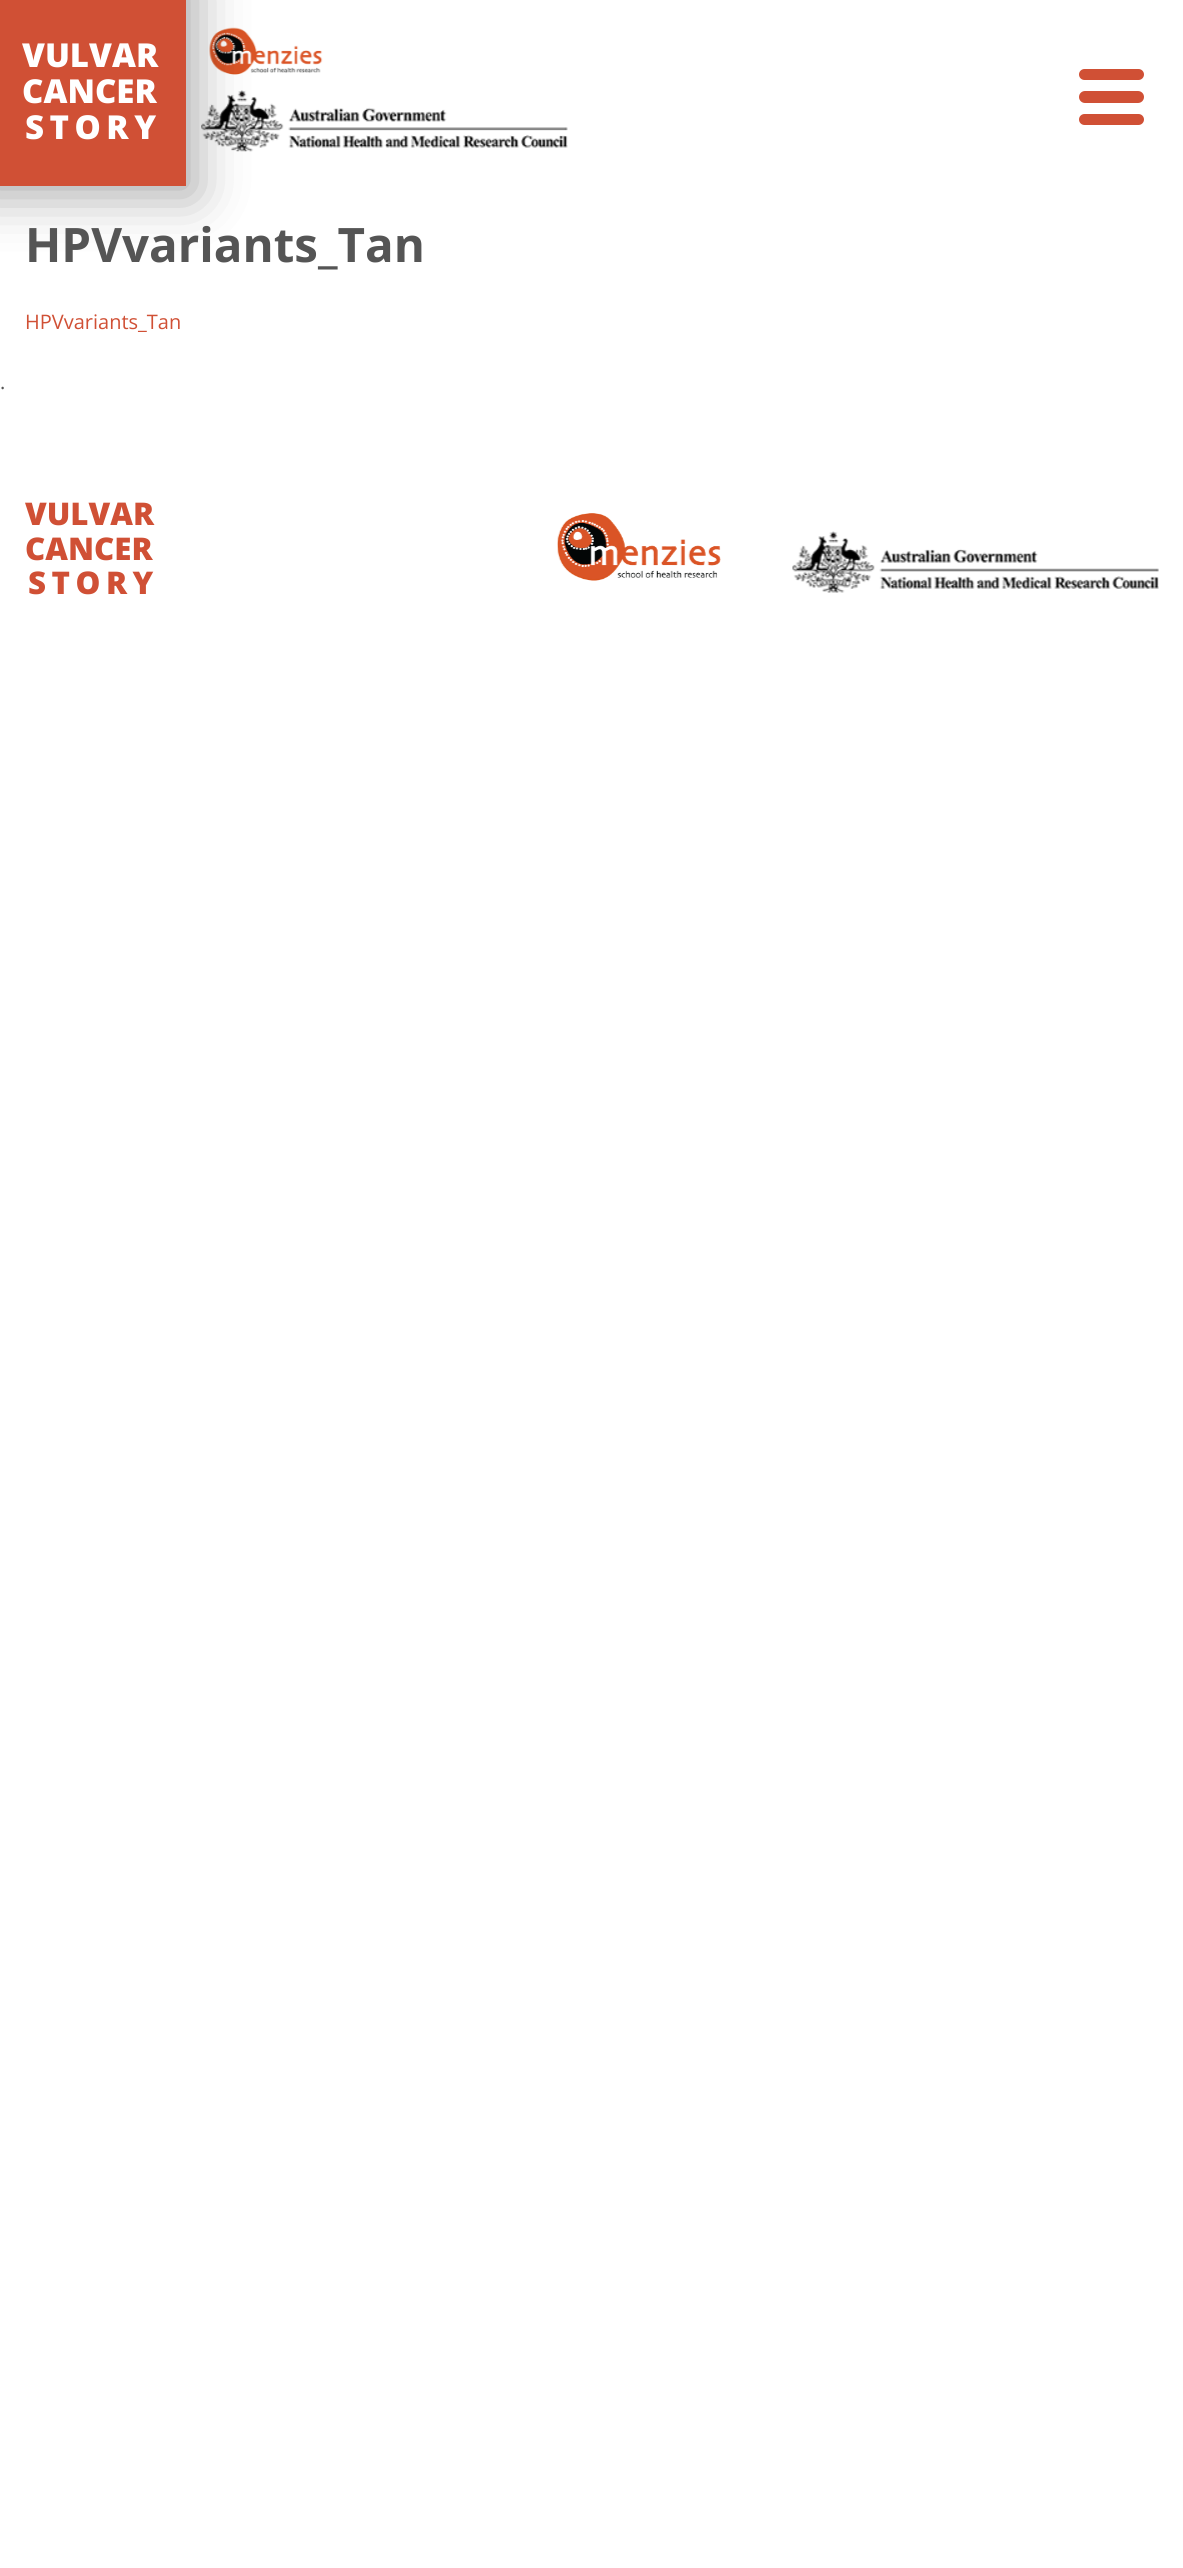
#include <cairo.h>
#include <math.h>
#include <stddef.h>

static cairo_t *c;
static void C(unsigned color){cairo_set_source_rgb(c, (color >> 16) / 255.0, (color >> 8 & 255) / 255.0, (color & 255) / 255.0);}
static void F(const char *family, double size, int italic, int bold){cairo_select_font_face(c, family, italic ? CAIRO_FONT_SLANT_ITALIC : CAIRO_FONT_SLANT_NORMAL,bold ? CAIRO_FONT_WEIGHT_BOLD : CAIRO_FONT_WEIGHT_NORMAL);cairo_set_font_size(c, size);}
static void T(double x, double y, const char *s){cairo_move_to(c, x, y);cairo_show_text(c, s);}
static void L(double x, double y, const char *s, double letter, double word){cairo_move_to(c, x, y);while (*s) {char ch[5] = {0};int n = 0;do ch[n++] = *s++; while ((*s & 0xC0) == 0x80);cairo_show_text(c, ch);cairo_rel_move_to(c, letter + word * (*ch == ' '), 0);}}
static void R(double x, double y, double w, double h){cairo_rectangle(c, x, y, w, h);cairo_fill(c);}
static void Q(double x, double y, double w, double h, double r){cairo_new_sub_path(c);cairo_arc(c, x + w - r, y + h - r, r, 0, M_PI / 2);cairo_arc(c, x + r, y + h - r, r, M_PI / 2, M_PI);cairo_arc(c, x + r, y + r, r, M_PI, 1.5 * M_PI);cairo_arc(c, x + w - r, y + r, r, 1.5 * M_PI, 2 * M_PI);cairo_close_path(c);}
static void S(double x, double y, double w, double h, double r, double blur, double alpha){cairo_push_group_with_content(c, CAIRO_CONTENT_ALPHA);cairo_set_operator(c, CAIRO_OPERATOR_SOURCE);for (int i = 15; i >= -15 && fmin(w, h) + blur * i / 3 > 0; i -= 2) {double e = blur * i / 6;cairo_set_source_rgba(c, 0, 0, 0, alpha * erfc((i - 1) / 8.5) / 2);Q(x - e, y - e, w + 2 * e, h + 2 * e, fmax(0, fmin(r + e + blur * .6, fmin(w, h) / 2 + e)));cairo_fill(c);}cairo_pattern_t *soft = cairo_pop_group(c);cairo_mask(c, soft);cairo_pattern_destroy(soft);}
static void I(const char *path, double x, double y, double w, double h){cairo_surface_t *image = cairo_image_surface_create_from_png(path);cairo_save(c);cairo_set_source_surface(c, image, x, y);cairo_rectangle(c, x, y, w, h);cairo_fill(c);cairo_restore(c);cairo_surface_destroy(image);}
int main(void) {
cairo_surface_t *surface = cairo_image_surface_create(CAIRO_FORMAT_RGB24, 1183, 2568);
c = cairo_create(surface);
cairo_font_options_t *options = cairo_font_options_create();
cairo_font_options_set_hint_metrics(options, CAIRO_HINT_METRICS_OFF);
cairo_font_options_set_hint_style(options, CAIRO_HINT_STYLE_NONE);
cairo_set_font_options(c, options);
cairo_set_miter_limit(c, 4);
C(0xffffff);
cairo_paint(c);
I("1.png",209,27,114,48);
I("2.png",201,90,367,62);
C(0x000000);
S(-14,-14,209,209,0,26,.35);
C(0xd05035);
R(0,0,186,186);
F("Open Sans ExtraBold",33,0,0);
C(0xffffff);
T(22,67,"VULVAR");
T(22,103,"CANCER");
L(25,139,"STORY",5.5,0);
C(0xd05035);
Q(1079,91,65,12,6);
cairo_fill(c);
Q(1079,69,65,11,5.5);
cairo_fill(c);
Q(1079,114,65,11,5.5);
cairo_fill(c);
F("Open Sans",47.5,0,1);
C(0x555555);
T(25,262,"HPVvariants_Tan");
F("Open Sans",20,0,0);
C(0xd05035);
T(25,329,"HPVvariants_Tan");
C(0x555555);
T(0,389,".");
F("Open Sans ExtraBold",31.25,0,0);
C(0xd05035);
T(25,525,"VULVAR");
T(25,560,"CANCER");
L(28,594,"STORY",5.5,0);
I("3.png",557,513,164,68);
I("4.png",792,531,367,62);
cairo_surface_write_to_png(surface, "o.png");
cairo_font_options_destroy(options);
cairo_destroy(c);
cairo_surface_destroy(surface);
return 0;
}
